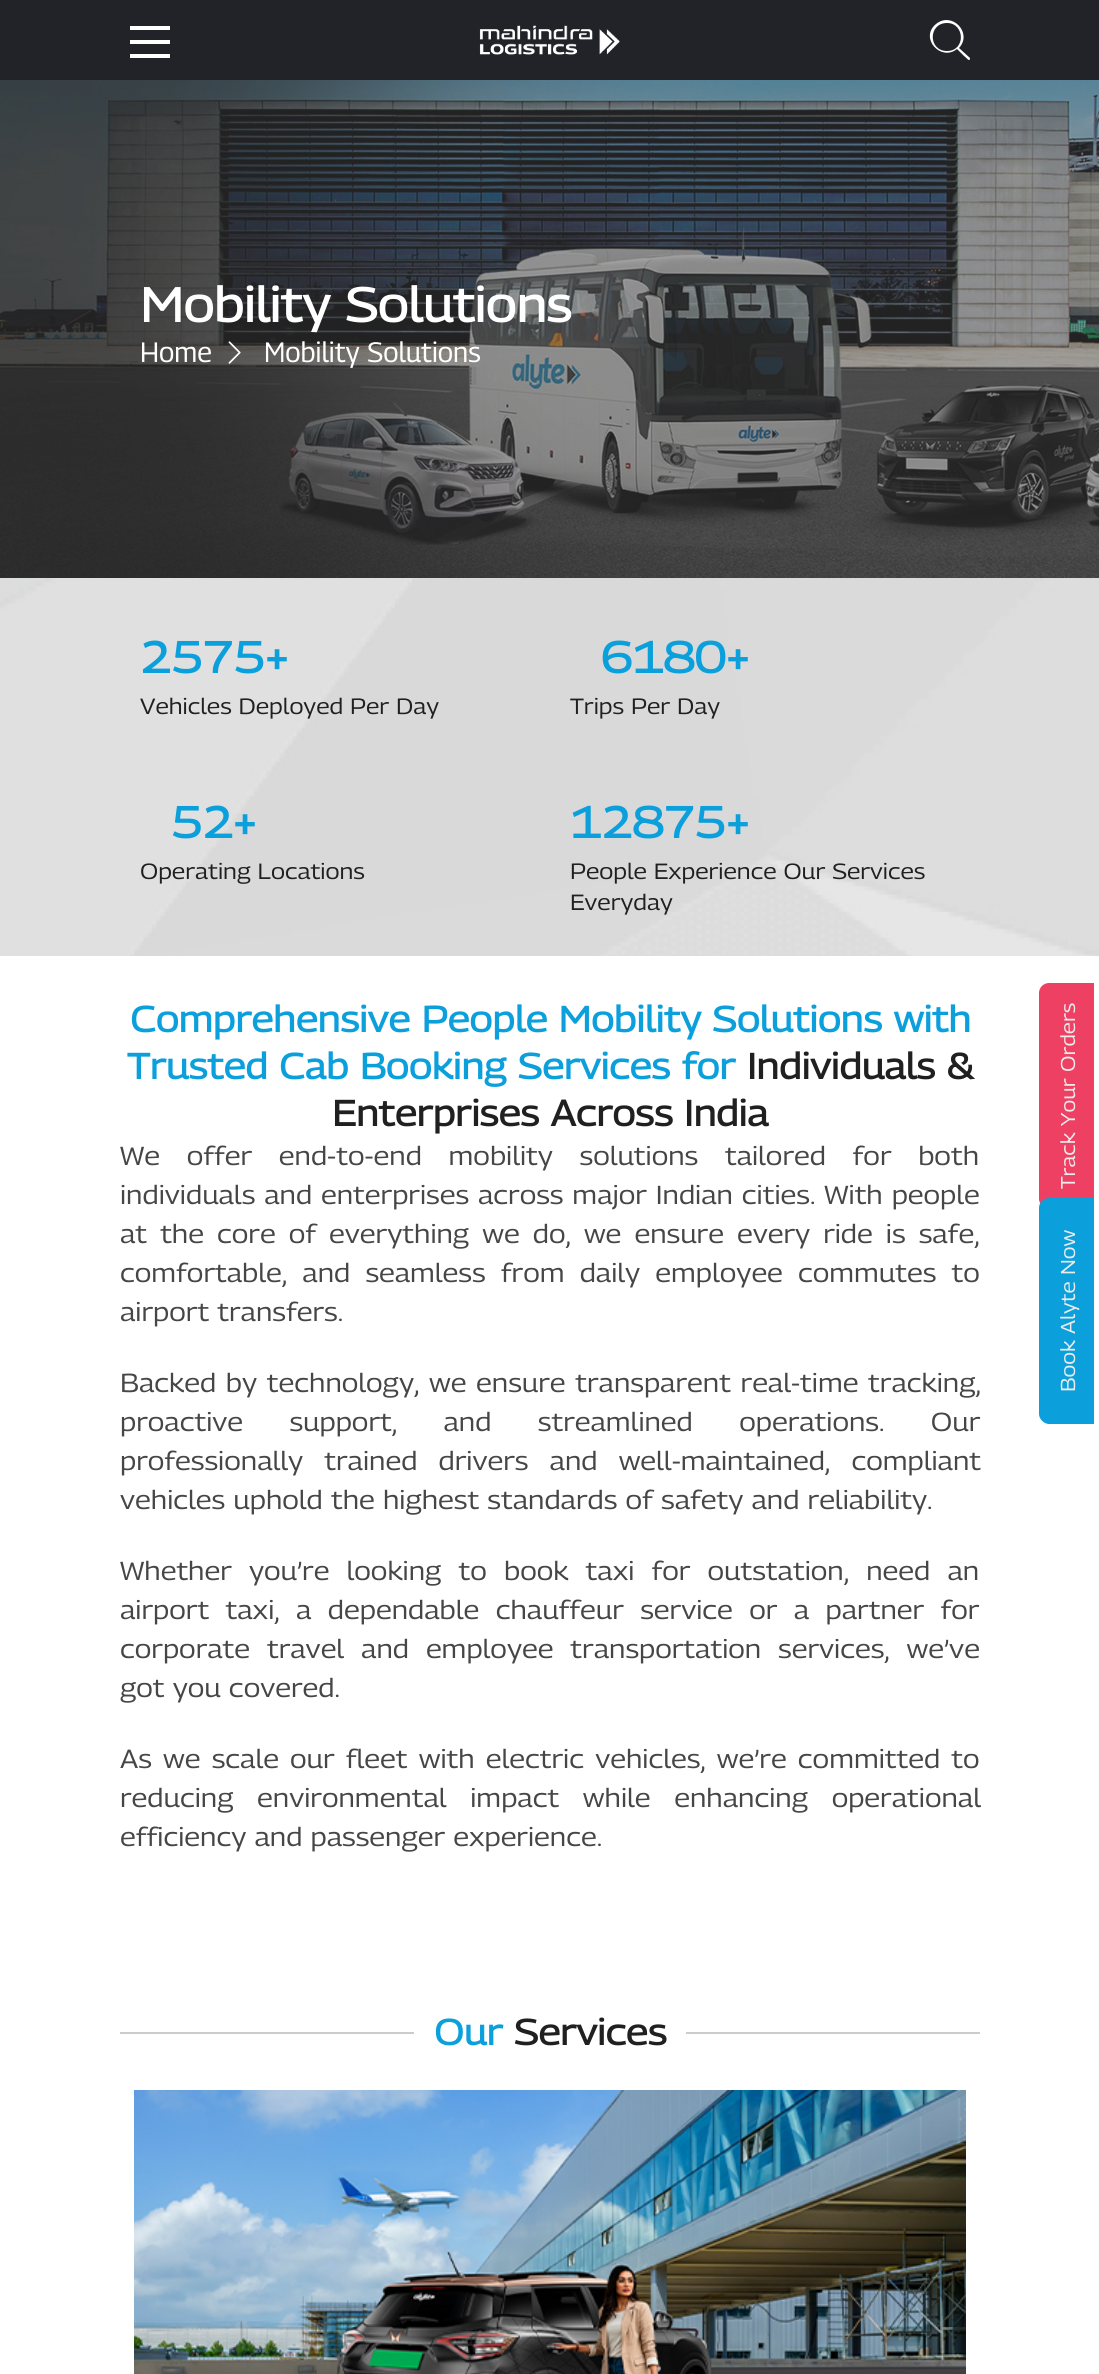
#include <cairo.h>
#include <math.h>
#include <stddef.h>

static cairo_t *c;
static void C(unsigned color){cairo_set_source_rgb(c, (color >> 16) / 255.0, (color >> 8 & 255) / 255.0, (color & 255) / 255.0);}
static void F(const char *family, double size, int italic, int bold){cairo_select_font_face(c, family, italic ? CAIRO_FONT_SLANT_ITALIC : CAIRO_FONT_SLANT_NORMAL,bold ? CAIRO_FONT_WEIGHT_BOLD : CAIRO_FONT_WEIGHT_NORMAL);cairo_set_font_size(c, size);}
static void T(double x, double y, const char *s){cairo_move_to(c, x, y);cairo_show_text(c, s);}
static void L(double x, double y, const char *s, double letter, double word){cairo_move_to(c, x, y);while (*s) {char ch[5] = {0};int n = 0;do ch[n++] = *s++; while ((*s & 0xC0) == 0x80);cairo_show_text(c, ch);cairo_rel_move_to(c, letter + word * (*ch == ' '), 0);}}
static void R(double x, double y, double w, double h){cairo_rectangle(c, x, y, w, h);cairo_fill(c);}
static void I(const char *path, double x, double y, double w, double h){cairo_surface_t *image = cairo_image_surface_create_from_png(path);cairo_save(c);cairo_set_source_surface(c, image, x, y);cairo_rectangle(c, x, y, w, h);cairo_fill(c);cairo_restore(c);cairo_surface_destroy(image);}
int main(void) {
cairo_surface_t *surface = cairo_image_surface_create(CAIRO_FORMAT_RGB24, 1099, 2374);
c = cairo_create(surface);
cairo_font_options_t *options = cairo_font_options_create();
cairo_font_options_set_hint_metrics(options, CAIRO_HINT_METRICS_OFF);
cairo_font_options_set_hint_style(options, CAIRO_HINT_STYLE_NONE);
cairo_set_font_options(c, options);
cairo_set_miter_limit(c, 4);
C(0xffffff);
cairo_paint(c);
C(0x222328);
R(0,0,1099,80);
C(0xffffff);
R(130,26,40,4);
R(130,40,40,4);
R(130,54,40,4);
I("1.png",479,25,141,30);
cairo_new_path(c);
cairo_move_to(c,970,58);
cairo_line_to(c,959,48);
cairo_curve_to(c,973,33,952,11,936,24);
cairo_curve_to(c,919,38,941,62,957,49);
cairo_line_to(c,964,56);
cairo_curve_to(c,967,58,969,62,970,59);
cairo_close_path(c);
cairo_move_to(c,947,51);
cairo_curve_to(c,928,51,928,23,947,23);
cairo_curve_to(c,965,23,966,51,947,51);
cairo_close_path(c);
cairo_fill(c);
I("2.png",0,80,1099,498);
F("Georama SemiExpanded",48,0,1);
T(140,322,"Mobility Solutions");
F("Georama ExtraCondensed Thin",28,0,0);
T(140,362,"Home");
I("3.png",228,341,13,23);
T(264,362,"Mobility Solutions");
I("4.png",0,578,1099,378);
F("Georama SemiExpanded",44,0,1);
C(0x0ba0dc);
T(140,673,"2575");
T(265,673,"+");
F("Georama SemiExpanded",22,0,0);
C(0x202020);
T(140,714,"Vehicles Deployed Per Day");
F("Georama SemiExpanded",44,0,1);
C(0x0ba0dc);
T(601,673,"6180");
T(726,673,"+");
F("Georama SemiExpanded",22,0,0);
C(0x202020);
T(570,714,"Trips Per Day");
F("Georama SemiExpanded",44,0,1);
C(0x0ba0dc);
T(171,838,"52");
T(233,838,"+");
F("Georama SemiExpanded",22,0,0);
C(0x202020);
T(140,879,"Operating Locations");
F("Georama SemiExpanded",44,0,1);
C(0x0ba0dc);
T(570,838,"12875");
T(726,838,"+");
F("Georama SemiExpanded",22,0,0);
C(0x202020);
T(570,879,"People Experience Our Services");
T(570,910,"Everyday");
F("Georama SemiExpanded",36,0,1);
C(0x0ba0dc);
T(130,1032,"Comprehensive People Mobility Solutions with");
T(127,1079,"Trusted Cab Booking Services for");
C(0x202020);
T(747,1079,"Individuals &");
T(332,1126,"Enterprises Across India");
F("Georama SemiExpanded",26,0,0);
C(0x464646);
L(120,1165,"We offer end-to-end mobility solutions tailored for both",0,18.5);
L(120,1204,"individuals and enterprises across major Indian cities. With people",0,.75);
L(120,1243,"at the core of everything we do, we ensure every ride is safe,",0,4.9);
L(120,1282,"comfortable, and seamless from daily employee commutes to",0,7);
T(120,1321,"airport transfers.");
L(120,1392,"Backed by technology, we ensure transparent real-time tracking,",0,1.5);
L(120,1431,"proactive support, and streamlined operations. Our",0,38.25);
L(120,1470,"professionally trained drivers and well-maintained, compliant",0,13);
T(120,1509,"vehicles uphold the highest standards of safety and reliability.");
L(120,1580,"Whether you’re looking to book taxi for outstation, need an",0,9);
L(120,1619,"airport taxi, a dependable chauffeur service or a partner for",0,8.25);
L(120,1658,"corporate travel and employee transportation services, we’ve",0,8.75);
T(120,1697,"got you covered.");
L(120,1768,"As we scale our fleet with electric vehicles, we’re committed to",0,3);
L(120,1807,"reducing environmental impact while enhancing operational",0,15.5);
T(120,1846,"efficiency and passenger experience.");
C(0xcccccc);
R(120,2032,294,2);
F("Georama SemiExpanded",36,0,1);
C(0x0ba0dc);
T(434,2045,"Our");
C(0x202020);
T(514,2045,"Services");
C(0xcccccc);
R(686,2032,294,2);
I("5.png",134,2090,832,284);
C(0xee4063);
cairo_new_path(c);
cairo_move_to(c,1039,1199);
cairo_line_to(c,1039,993);
cairo_curve_to(c,1039,987,1044,983,1049,983);
cairo_line_to(c,1094,983);
cairo_line_to(c,1094,1209);
cairo_line_to(c,1049,1209);
cairo_curve_to(c,1044,1209,1039,1204,1039,1199);
cairo_close_path(c);
cairo_fill(c);
F("Georama SemiExpanded",20,0,0);
C(0xebebeb);
cairo_save(c);
cairo_translate(c,1075,1189);
cairo_rotate(c,-90 * M_PI / 180);
T(0,0,"Track Your Orders");
cairo_restore(c);
C(0x0ba0dc);
cairo_new_path(c);
cairo_move_to(c,1039,1414);
cairo_line_to(c,1039,1208);
cairo_curve_to(c,1039,1202,1044,1198,1049,1198);
cairo_line_to(c,1094,1198);
cairo_line_to(c,1094,1424);
cairo_line_to(c,1049,1424);
cairo_curve_to(c,1044,1424,1039,1419,1039,1414);
cairo_close_path(c);
cairo_fill(c);
C(0xebebeb);
cairo_save(c);
cairo_translate(c,1075,1392);
cairo_rotate(c,-90 * M_PI / 180);
T(0,0,"Book Alyte Now");
cairo_restore(c);
cairo_surface_write_to_png(surface, "o.png");
cairo_font_options_destroy(options);
cairo_destroy(c);
cairo_surface_destroy(surface);
return 0;
}
